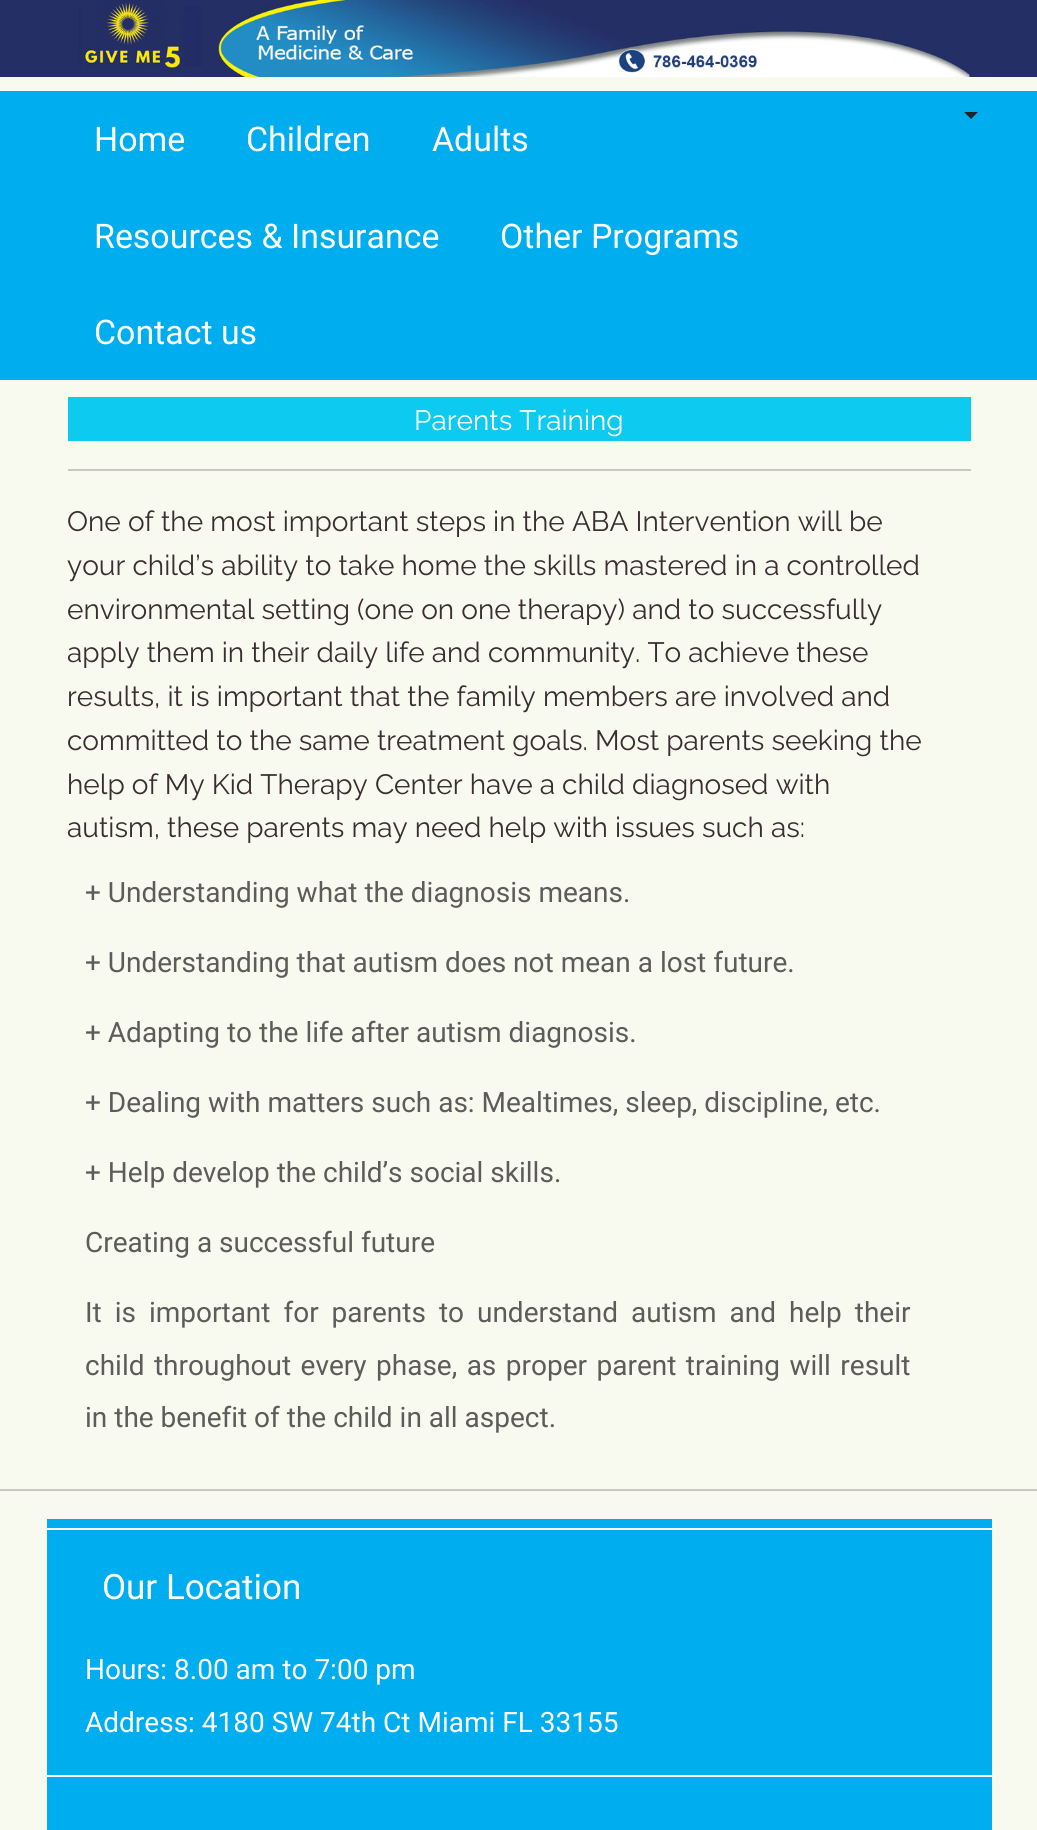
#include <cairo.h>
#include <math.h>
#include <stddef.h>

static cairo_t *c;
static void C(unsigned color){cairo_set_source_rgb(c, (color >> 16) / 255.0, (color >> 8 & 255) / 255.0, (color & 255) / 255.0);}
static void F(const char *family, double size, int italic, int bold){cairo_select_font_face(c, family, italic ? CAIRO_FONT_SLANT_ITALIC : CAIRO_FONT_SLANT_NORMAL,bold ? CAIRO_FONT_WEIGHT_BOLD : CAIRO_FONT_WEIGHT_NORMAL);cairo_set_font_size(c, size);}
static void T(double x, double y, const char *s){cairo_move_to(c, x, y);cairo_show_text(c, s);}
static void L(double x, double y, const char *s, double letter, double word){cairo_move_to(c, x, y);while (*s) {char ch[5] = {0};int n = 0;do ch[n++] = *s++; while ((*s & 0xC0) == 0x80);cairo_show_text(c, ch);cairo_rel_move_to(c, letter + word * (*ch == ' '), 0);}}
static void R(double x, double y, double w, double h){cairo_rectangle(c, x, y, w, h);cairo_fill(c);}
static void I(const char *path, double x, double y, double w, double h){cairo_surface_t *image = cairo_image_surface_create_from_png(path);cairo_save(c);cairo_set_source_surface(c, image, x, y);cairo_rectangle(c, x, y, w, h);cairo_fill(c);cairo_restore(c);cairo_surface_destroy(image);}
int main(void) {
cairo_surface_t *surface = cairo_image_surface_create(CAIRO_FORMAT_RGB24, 1037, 1830);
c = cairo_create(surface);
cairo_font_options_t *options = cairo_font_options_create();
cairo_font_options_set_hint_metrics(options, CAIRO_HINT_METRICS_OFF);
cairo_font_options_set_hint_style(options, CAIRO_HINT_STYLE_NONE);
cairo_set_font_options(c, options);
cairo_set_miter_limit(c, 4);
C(0xf9faef);
cairo_paint(c);
C(0x242f65);
R(0,0,1037,77);
I("1.png",79,0,891,77);
C(0x00adef);
R(0,91,1037,289);
C(0x212529);
cairo_new_path(c);
cairo_move_to(c,964,112);
cairo_line_to(c,978,112);
cairo_line_to(c,971,119);
cairo_close_path(c);
cairo_fill(c);
F("Roboto",33.9,0,0);
C(0xffffff);
T(94,151,"Home");
T(246,151,"Children");
T(432,151,"Adults");
T(94,248,"Resources & Insurance");
T(500,248,"Other Programs");
T(94,344,"Contact us");
C(0x0dcaf0);
R(68,397,903,44);
F("Raleway Thin",28,0,0);
C(0xffffff);
T(414,430,"Parents Training");
C(0xc9c7c0);
R(68,469,903,2);
C(0x392e31);
T(67,531,"One of the most important steps in the ABA Intervention will be");
T(67,575,"your child’s ability to take home the skills mastered in a controlled");
T(67,619,"environmental setting (one on one therapy) and to successfully");
T(67,662,"apply them in their daily life and community. To achieve these");
T(67,706,"results, it is important that the family members are involved and");
T(67,750,"committed to the same treatment goals. Most parents seeking the");
T(67,794,"help of My Kid Therapy Center have a child diagnosed with");
T(67,837,"autism, these parents may need help with issues such as:");
F("Roboto",28,0,0);
C(0x5e5c5a);
T(85,902,"+ Understanding what the diagnosis means.");
T(85,972,"+ Understanding that autism does not mean a lost future.");
T(85,1042,"+ Adapting to the life after autism diagnosis.");
T(85,1112,"+ Dealing with matters such as: Mealtimes, sleep, discipline, etc.");
T(85,1182,"+ Help develop the child’s social skills.");
T(85,1252,"Creating a successful future");
L(85,1322,"It is important for parents to understand autism and help their",0,6);
L(85,1375,"child throughout every phase, as proper parent training will result",0,2.5);
T(85,1427,"in the benefit of the child in all aspect.");
C(0xc9c7c0);
R(0,1489,1037,2);
C(0x00adef);
R(47,1519,945,311);
C(0xffffff);
R(47,1528,945,2);
F("Roboto",35,0,0);
T(102,1599,"Our Location");
F("Roboto",28,0,0);
T(85,1679,"Hours: 8.00 am to 7:00 pm");
T(85,1732,"Address: 4180 SW 74th Ct Miami FL 33155");
R(47,1775,945,2);
cairo_surface_write_to_png(surface, "o.png");
cairo_font_options_destroy(options);
cairo_destroy(c);
cairo_surface_destroy(surface);
return 0;
}
